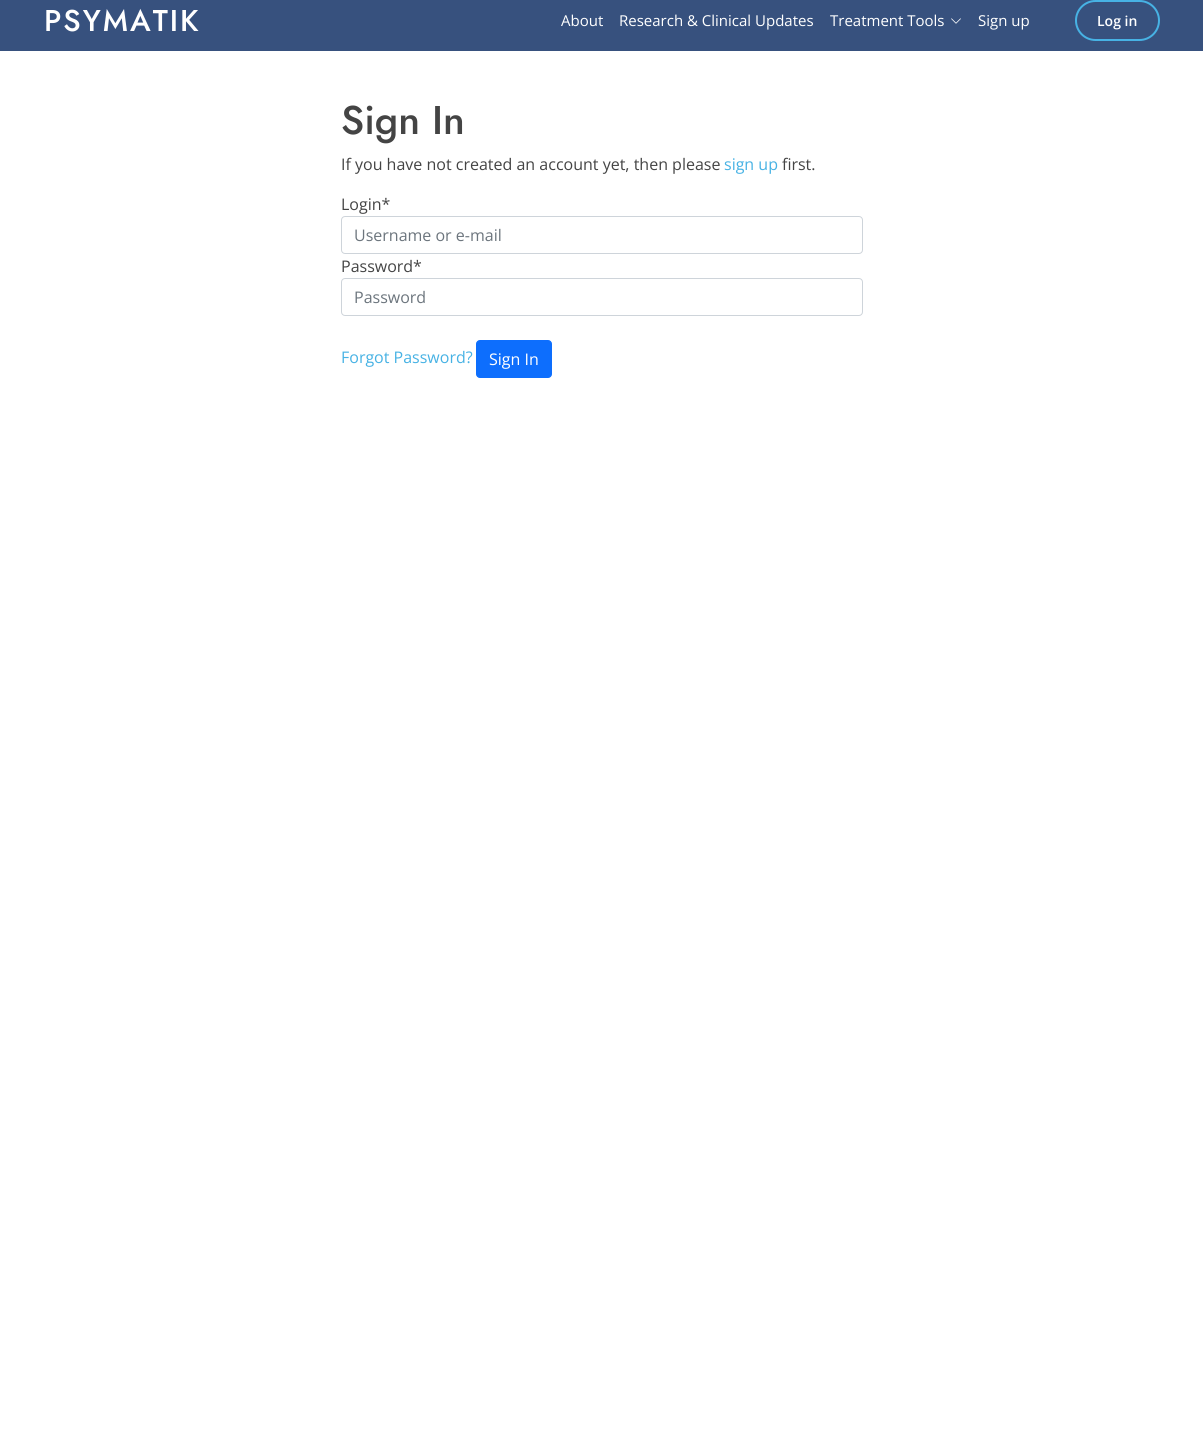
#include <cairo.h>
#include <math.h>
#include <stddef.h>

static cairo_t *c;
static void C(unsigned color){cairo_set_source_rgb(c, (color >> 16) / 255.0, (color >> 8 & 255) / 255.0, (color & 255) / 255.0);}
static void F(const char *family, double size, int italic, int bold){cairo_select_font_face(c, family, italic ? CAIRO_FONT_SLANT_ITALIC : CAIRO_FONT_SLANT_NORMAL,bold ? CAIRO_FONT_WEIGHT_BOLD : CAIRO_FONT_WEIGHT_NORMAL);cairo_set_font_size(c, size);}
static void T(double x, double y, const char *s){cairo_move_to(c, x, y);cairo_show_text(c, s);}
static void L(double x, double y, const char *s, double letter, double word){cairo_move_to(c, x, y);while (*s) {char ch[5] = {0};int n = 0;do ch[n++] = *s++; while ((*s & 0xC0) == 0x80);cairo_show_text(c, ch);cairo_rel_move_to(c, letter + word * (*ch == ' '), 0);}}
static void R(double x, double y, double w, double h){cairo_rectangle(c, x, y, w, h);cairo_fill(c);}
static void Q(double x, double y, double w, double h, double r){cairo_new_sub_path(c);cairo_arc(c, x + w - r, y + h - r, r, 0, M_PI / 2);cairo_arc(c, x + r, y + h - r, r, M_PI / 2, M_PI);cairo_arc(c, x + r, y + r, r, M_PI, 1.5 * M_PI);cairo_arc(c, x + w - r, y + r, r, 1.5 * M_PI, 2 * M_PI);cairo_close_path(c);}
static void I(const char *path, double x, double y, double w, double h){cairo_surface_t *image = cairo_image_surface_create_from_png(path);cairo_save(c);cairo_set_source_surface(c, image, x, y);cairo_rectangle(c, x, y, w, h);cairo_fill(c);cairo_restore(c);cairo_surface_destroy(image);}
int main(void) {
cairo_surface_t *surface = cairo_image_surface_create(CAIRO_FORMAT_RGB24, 1203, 1450);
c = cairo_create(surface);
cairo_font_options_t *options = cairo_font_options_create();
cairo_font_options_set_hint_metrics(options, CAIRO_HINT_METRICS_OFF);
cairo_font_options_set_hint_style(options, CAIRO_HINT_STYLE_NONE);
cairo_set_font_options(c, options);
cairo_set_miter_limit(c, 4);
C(0xffffff);
cairo_paint(c);
C(0x37517e);
R(0,0,1203,51);
F("Jost Medium",30,0,0);
C(0xffffff);
L(44,31,"PSYMATIK",2,0);
F("Open Sans",15,0,0);
T(561,26,"About");
T(619,26,"Research & Clinical Updates");
T(830,26,"Treatment Tools");
I("1.png",951,18,10,6);
T(978,26,"Sign up");
Q(1076,1,83,39,19.5);
C(0x47b2e4);
cairo_stroke(c);
F("Open Sans SemiBold",14,0,0);
C(0xffffff);
T(1097,26,"Log in");
F("Jost Medium",40,0,0);
C(0x444444);
T(341,134,"Sign In");
F("Open Sans",16,0,0);
T(341,170,"If you have not created an account yet, then please");
C(0x47b2e4);
T(724,170,"sign up");
C(0x444444);
T(782,170,"first.");
T(341,210,"Login*");
Q(341.5,216.5,521,37,3.5);
C(0xced4da);
cairo_set_line_width(c,1);
cairo_stroke(c);
C(0x6c757d);
T(354,241,"Username or e-mail");
C(0x444444);
T(341,272,"Password*");
Q(341.5,278.5,521,37,3.5);
C(0xced4da);
cairo_stroke(c);
C(0x6c757d);
T(354,303,"Password");
C(0x47b2e4);
T(341,363,"Forgot Password?");
C(0x0d6efd);
Q(476.5,340.5,75,37,3.5);
cairo_fill_preserve(c);
cairo_stroke(c);
C(0xffffff);
T(489,365,"Sign In");
cairo_surface_write_to_png(surface, "o.png");
cairo_font_options_destroy(options);
cairo_destroy(c);
cairo_surface_destroy(surface);
return 0;
}
